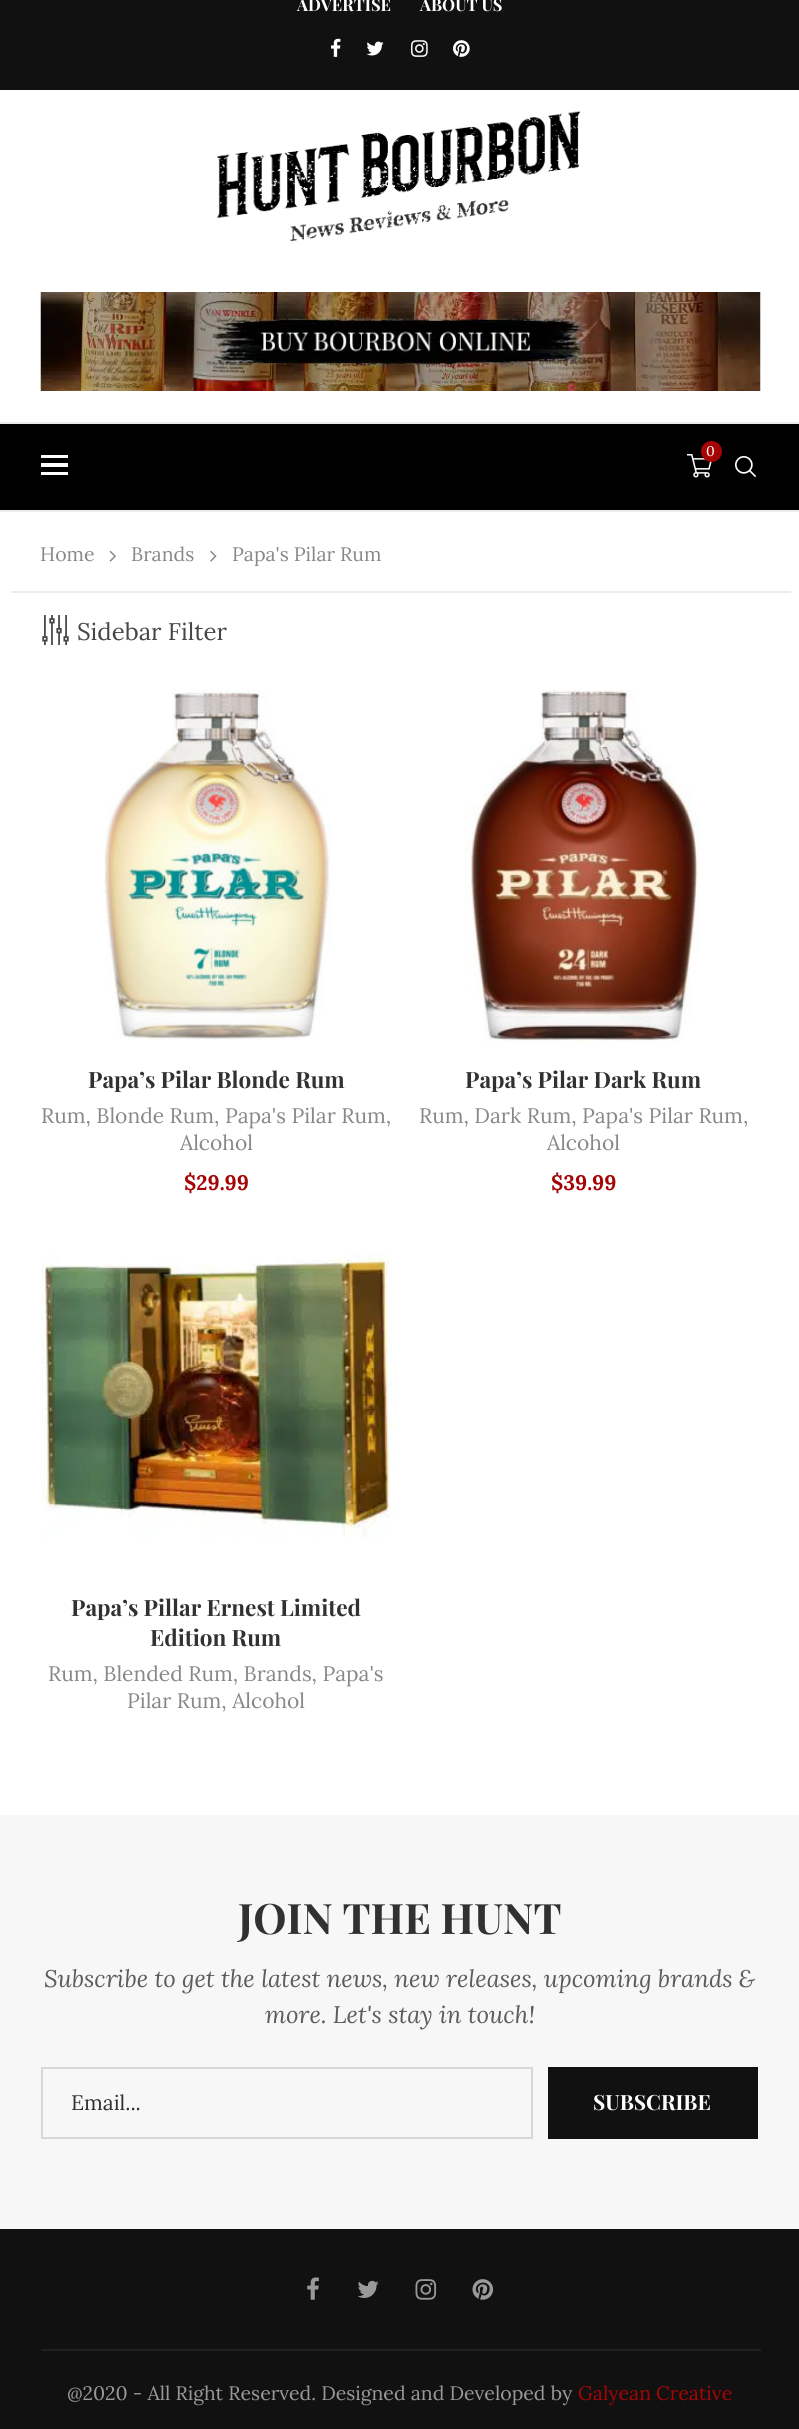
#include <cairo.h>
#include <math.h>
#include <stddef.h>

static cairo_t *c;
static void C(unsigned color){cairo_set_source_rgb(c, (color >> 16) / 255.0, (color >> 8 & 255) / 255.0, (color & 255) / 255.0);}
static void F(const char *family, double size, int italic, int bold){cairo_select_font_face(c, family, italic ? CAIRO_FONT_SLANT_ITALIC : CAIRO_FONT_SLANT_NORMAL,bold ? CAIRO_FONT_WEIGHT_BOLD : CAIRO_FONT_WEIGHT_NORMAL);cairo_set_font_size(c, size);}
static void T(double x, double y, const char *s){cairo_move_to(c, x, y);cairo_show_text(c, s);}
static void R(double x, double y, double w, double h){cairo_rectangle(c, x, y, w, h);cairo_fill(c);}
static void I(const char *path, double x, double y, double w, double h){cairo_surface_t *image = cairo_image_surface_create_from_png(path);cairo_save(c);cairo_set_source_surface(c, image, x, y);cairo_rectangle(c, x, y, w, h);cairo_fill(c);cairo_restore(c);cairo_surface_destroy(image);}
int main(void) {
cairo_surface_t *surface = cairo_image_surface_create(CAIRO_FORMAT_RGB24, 799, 2429);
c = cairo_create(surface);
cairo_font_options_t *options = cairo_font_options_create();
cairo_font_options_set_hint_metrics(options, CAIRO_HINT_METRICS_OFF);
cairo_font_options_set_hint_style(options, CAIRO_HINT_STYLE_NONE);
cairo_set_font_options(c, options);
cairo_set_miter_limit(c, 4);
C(0xffffff);
cairo_paint(c);
C(0x111111);
R(0,0,799,90);
F("Playfair Display",16.5,0,1);
C(0xffffff);
T(297,11,"ADVERTISE");
T(420,11,"ABOUT US");
I("1.png",331,38,10,19);
I("2.png",366,41,18,15);
I("3.png",411,40,17,17);
I("4.png",453,40,17,17);
I("5.png",216,111,365,131);
I("6.png",40,292,721,99);
C(0x000000);
R(0,424,799,86);
C(0xececec);
R(0,422,799,2);
R(0,510,799,2);
I("7.png",687,454,25,24);
C(0xa60505);
cairo_arc(c,711.5,451.5,10.5,0,2 * M_PI);
cairo_fill(c);
F("Lora",14,0,0);
C(0xffffff);
T(706,456,"0");
R(41,455,27,3);
R(41,463,27,4);
R(41,472,27,3);
I("8.png",735,456,21,21);
F("Lora",19.5,0,0);
C(0x888888);
T(40,561,"Home");
I("9.png",109,550,7,12);
T(131,561,"Brands");
I("10.png",210,550,7,12);
T(232,561,"Papa's Pilar Rum");
C(0xececec);
R(11,591,780,2);
I("11.png",42,615,27,30);
F("Lora",24,0,0);
C(0x464646);
T(77,640,"Sidebar Filter");
I("12.png",103,690,229,350);
F("Playfair Display",22.5,0,1);
C(0x313131);
T(88,1088,"Papa’s Pilar Blonde Rum");
F("Lora",21,0,0);
C(0x888888);
T(41,1123,"Rum, Blonde Rum, Papa's Pilar Rum,");
T(180,1150,"Alcohol");
F("Lora",21,0,1);
C(0xa60505);
T(184,1190,"$29.99");
I("13.png",465,690,235,352);
F("Playfair Display",22.5,0,1);
C(0x313131);
T(465,1088,"Papa’s Pilar Dark Rum");
F("Lora",21,0,0);
C(0x888888);
T(419,1123,"Rum, Dark Rum, Papa's Pilar Rum,");
T(547,1150,"Alcohol");
F("Lora",21,0,1);
C(0xa60505);
T(551,1190,"$39.99");
I("14.png",41,1254,352,284);
F("Playfair Display",22.5,0,1);
C(0x313131);
T(71,1616,"Papa’s Pillar Ernest Limited");
T(150,1646,"Edition Rum");
F("Lora",21,0,0);
C(0x888888);
T(48,1681,"Rum, Blended Rum, Brands, Papa's");
T(127,1708,"Pilar Rum, Alcohol");
C(0xf7f7f7);
R(0,1815,799,414);
F("Playfair Display",42,0,1);
C(0x313131);
T(238,1934,"JOIN THE HUNT");
F("Lora",24,1,0);
C(0x5c5c5e);
T(44,1987,"Subscribe to get the latest news, new releases, upcoming brands &");
T(265,2023,"more. Let's stay in touch!");
cairo_rectangle(c,42,2068,490,70);
C(0xd7d7da);
cairo_stroke(c);
F("Lora",21,0,0);
C(0x313131);
T(71,2110,"Email...");
C(0x111111);
R(548,2067,210,72);
F("Playfair Display",21,0,1);
C(0xffffff);
T(593,2110,"SUBSCRIBE");
C(0x111111);
R(0,2229,799,200);
C(0x212121);
R(41,2349,720,2);
I("15.png",307,2277,12,23);
I("16.png",357,2280,22,18);
I("17.png",415,2279,22,21);
I("18.png",472,2279,22,21);
F("Lora",19.5,0,0);
C(0x999999);
T(67,2400,"@2020 - All Right Reserved. Designed and Developed by");
C(0xa60505);
T(578,2400,"Galyean Creative");
cairo_surface_write_to_png(surface, "o.png");
cairo_font_options_destroy(options);
cairo_destroy(c);
cairo_surface_destroy(surface);
return 0;
}
